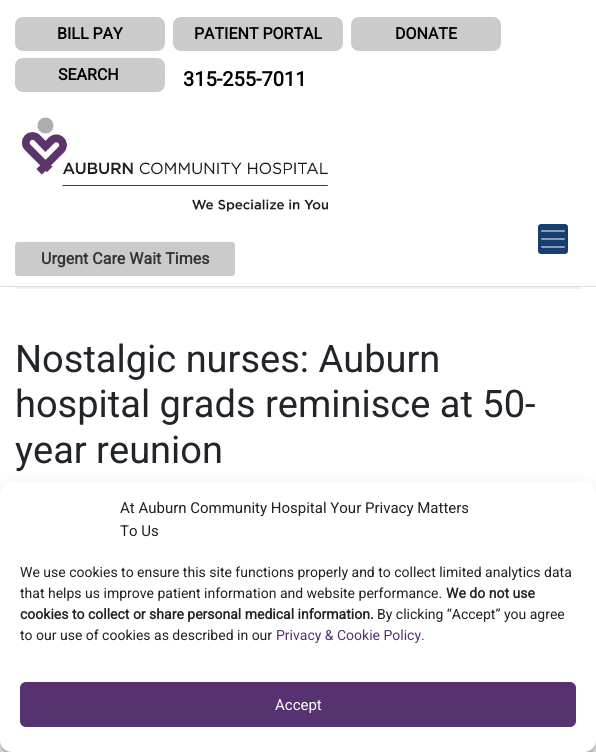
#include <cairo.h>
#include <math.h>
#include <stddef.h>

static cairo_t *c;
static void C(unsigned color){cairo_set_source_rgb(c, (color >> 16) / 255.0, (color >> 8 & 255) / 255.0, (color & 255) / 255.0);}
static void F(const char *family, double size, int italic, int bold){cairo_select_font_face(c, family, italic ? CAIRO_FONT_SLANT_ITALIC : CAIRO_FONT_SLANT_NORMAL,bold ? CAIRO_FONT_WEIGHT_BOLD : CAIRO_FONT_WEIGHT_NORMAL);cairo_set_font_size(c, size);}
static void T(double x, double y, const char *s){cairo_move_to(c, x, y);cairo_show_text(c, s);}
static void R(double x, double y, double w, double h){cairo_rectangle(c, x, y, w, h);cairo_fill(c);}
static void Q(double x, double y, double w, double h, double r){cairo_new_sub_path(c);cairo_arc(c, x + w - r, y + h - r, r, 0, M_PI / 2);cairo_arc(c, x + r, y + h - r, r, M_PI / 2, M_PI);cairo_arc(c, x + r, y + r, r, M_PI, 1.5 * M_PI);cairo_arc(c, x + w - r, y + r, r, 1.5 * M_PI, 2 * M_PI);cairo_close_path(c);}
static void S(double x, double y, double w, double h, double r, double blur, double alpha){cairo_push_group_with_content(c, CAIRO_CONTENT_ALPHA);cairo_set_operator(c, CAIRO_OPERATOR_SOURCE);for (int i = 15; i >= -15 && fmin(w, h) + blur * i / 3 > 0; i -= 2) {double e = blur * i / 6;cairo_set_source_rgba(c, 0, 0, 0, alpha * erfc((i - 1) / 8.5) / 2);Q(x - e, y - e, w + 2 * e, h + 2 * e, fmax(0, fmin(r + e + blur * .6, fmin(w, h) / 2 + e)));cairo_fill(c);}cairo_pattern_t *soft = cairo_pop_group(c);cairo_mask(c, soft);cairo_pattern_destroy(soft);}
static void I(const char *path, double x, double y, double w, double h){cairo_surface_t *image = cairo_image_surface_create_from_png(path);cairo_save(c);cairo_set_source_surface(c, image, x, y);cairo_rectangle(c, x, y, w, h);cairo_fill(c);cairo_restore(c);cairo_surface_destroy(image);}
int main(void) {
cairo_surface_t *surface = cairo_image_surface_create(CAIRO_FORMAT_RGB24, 596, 752);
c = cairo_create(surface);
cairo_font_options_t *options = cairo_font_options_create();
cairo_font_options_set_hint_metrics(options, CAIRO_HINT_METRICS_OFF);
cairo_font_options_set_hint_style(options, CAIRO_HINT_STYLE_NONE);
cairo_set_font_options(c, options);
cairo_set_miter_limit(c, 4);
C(0xffffff);
cairo_paint(c);
C(0xdfdfdf);
R(0,286,596,1);
C(0xcbcbcb);
Q(15,17,150,34,8);
cairo_fill(c);
F("Roboto",16,0,1);
C(0x000000);
T(57,39,"BILL PAY");
C(0xcbcbcb);
Q(173,17,170,34,8);
cairo_fill(c);
C(0x000000);
T(194,39,"PATIENT PORTAL");
C(0xcbcbcb);
Q(351,17,150,34,8);
cairo_fill(c);
C(0x000000);
T(395,39,"DONATE");
C(0xcbcbcb);
Q(15,58,150,34,8);
cairo_fill(c);
C(0x000000);
T(58,80,"SEARCH");
F("Roboto",20,0,1);
T(183,86,"315-255-7011");
I("1.png",21,117,307,95);
C(0x173e71);
Q(538,224,30,30,3);
cairo_fill(c);
I("2.png",541,230,24,18);
C(0xcbcbcb);
Q(15,242,220,34,3);
cairo_fill(c);
F("Roboto",16,0,1);
C(0x333333);
T(41,264,"Urgent Care Wait Times");
C(0xf0f1f1);
R(15,287,566,2);
F("Roboto",38,0,0);
C(0x212529);
T(15,372,"Nostalgic nurses: Auburn");
T(15,417,"hospital grads reminisce at 50-");
T(15,463,"year reunion");
C(0x000000);
S(0,488,596,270,12,3,.23);
S(0,492,596,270,12,10,.19);
C(0xffffff);
Q(0,482,596,270,12);
cairo_fill(c);
F("Roboto",15,0,0);
C(0x222222);
T(120,513,"At Auburn Community Hospital Your Privacy Matters");
T(120,536,"To Us");
F("Roboto",14,0,0);
T(20,577,"We use cookies to ensure this site functions properly and to collect limited analytics data");
T(20,598,"that helps us improve patient information and website performance.");
F("Roboto",14,0,1);
T(446,598,"We do not use");
T(20,619,"cookies to collect or share personal medical information.");
F("Roboto",14,0,0);
T(377,619,"By clicking “Accept” you agree");
T(20,640,"to our use of cookies as described in our");
C(0x563271);
T(276,640,"Privacy & Cookie Policy.");
Q(20.5,682.5,555,44,5.5);
cairo_fill_preserve(c);
cairo_set_line_width(c,1);
cairo_stroke(c);
F("Roboto",15,0,0);
C(0xffffff);
T(275,710,"Accept");
cairo_surface_write_to_png(surface, "o.png");
cairo_font_options_destroy(options);
cairo_destroy(c);
cairo_surface_destroy(surface);
return 0;
}
